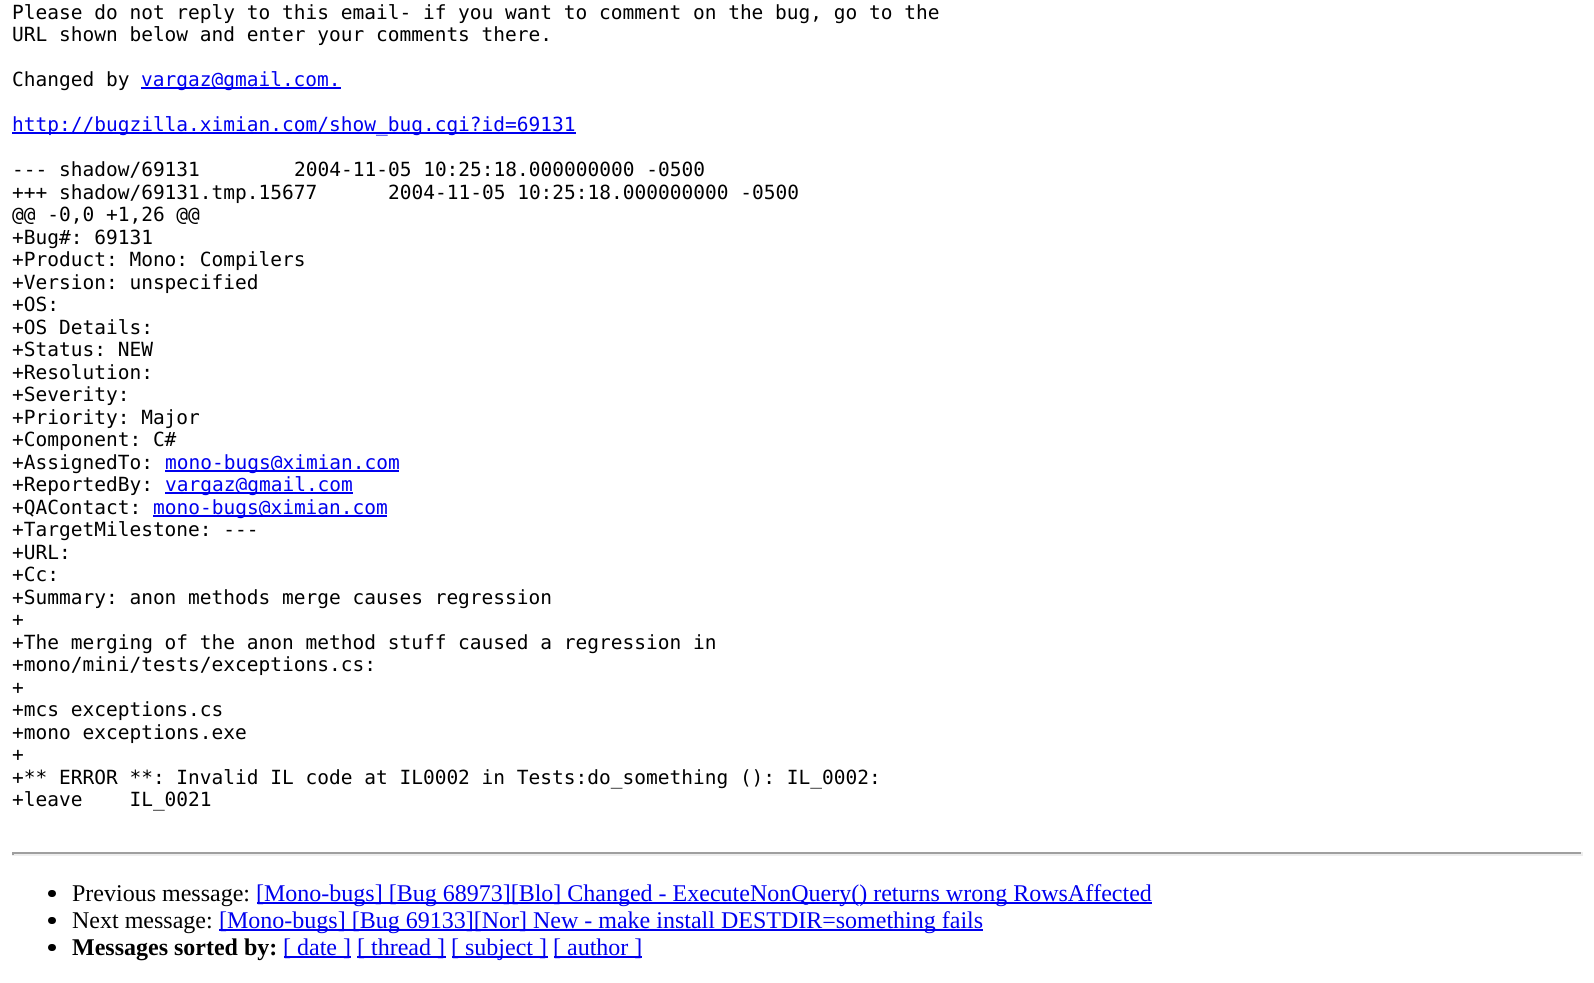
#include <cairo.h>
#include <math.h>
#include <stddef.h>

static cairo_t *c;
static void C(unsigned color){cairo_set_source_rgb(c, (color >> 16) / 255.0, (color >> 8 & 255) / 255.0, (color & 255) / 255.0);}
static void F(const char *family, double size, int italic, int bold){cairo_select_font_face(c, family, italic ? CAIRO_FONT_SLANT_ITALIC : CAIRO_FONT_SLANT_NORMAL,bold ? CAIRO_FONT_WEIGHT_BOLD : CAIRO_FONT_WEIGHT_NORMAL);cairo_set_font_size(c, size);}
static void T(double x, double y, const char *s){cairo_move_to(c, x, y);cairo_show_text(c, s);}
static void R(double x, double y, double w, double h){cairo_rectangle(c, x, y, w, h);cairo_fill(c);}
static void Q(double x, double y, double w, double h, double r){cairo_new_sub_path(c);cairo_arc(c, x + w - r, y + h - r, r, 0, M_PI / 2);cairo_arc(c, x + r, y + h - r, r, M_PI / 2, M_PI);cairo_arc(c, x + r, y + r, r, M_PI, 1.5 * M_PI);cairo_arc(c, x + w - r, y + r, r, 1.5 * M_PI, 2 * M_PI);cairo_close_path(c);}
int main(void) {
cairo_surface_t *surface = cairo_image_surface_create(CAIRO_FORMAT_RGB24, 1594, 983);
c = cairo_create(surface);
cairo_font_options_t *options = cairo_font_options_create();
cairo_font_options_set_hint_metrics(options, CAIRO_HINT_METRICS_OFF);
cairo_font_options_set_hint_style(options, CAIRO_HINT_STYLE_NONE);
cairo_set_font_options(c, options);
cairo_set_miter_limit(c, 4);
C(0xffffff);
cairo_paint(c);
F("DejaVu Sans Mono",19.5,0,0);
C(0x000000);
T(12,19,"Please do not reply to this email- if you want to comment on the bug, go to the");
T(12,41,"URL shown below and enter your comments there.");
T(12,86,"Changed by");
C(0x0000ee);
R(141,87,200,2);
T(141,86,"vargaz@gmail.com.");
R(12,132,564,2);
T(12,131,"http://bugzilla.ximian.com/show_bug.cgi?id=69131");
C(0x000000);
T(12,176,"--- shadow/69131");
T(294,176,"2004-11-05 10:25:18.000000000 -0500");
T(12,199,"+++ shadow/69131.tmp.15677");
T(388,199,"2004-11-05 10:25:18.000000000 -0500");
T(12,221,"@@ -0,0 +1,26 @@");
T(12,244,"+Bug#: 69131");
T(12,266,"+Product: Mono: Compilers");
T(12,289,"+Version: unspecified");
T(12,311,"+OS:");
T(12,334,"+OS Details:");
T(12,356,"+Status: NEW");
T(12,379,"+Resolution:");
T(12,401,"+Severity:");
T(12,424,"+Priority: Major");
T(12,446,"+Component: C#");
T(12,469,"+AssignedTo:");
C(0x0000ee);
R(165,470,234,2);
T(165,469,"mono-bugs@ximian.com");
C(0x000000);
T(12,491,"+ReportedBy:");
C(0x0000ee);
R(165,492,188,2);
T(165,491,"vargaz@gmail.com");
C(0x000000);
T(12,514,"+QAContact:");
C(0x0000ee);
R(153,515,234,2);
T(153,514,"mono-bugs@ximian.com");
C(0x000000);
T(12,536,"+TargetMilestone: ---");
T(12,559,"+URL:");
T(12,581,"+Cc:");
T(12,604,"+Summary: anon methods merge causes regression");
T(12,626,"+");
T(12,649,"+The merging of the anon method stuff caused a regression in");
T(12,671,"+mono/mini/tests/exceptions.cs:");
T(12,694,"+");
T(12,716,"+mcs exceptions.cs");
T(12,739,"+mono exceptions.exe");
T(12,761,"+");
T(12,784,"+** ERROR **: Invalid IL code at IL0002 in Tests:do_something (): IL_0002:");
T(12,806,"+leave    IL_0021");
C(0x9f9f9f);
R(12,852,1571,2);
C(0xeeeeee);
R(1581,852,2,3);
R(12,854,1571,2);
C(0x9f9f9f);
R(12,852,2,3);
C(0x000000);
Q(48,890,8,7,3.5);
cairo_fill(c);
F("Liberation Serif",24,0,0);
T(72,901,"Previous message:");
C(0x0000ee);
R(257,902,895,2);
T(256,901,"[Mono-bugs] [Bug 68973][Blo] Changed - ExecuteNonQuery() returns wrong RowsAffected");
C(0x000000);
Q(48,917,8,7,3.5);
cairo_fill(c);
T(72,928,"Next message:");
C(0x0000ee);
R(219,929,764,2);
T(219,928,"[Mono-bugs] [Bug 69133][Nor] New - make install DESTDIR=something fails");
C(0x000000);
Q(48,944,8,7,3.5);
cairo_fill(c);
F("Liberation Serif",24,0,1);
T(72,955,"Messages sorted by:");
C(0x0000ee);
R(284,956,67,2);
F("Liberation Serif",24,0,0);
T(283,955,"[ date ]");
R(357,956,89,2);
T(357,955,"[ thread ]");
R(452,956,96,2);
T(451,955,"[ subject ]");
R(554,956,88,2);
T(553,955,"[ author ]");
cairo_surface_write_to_png(surface, "o.png");
cairo_font_options_destroy(options);
cairo_destroy(c);
cairo_surface_destroy(surface);
return 0;
}
